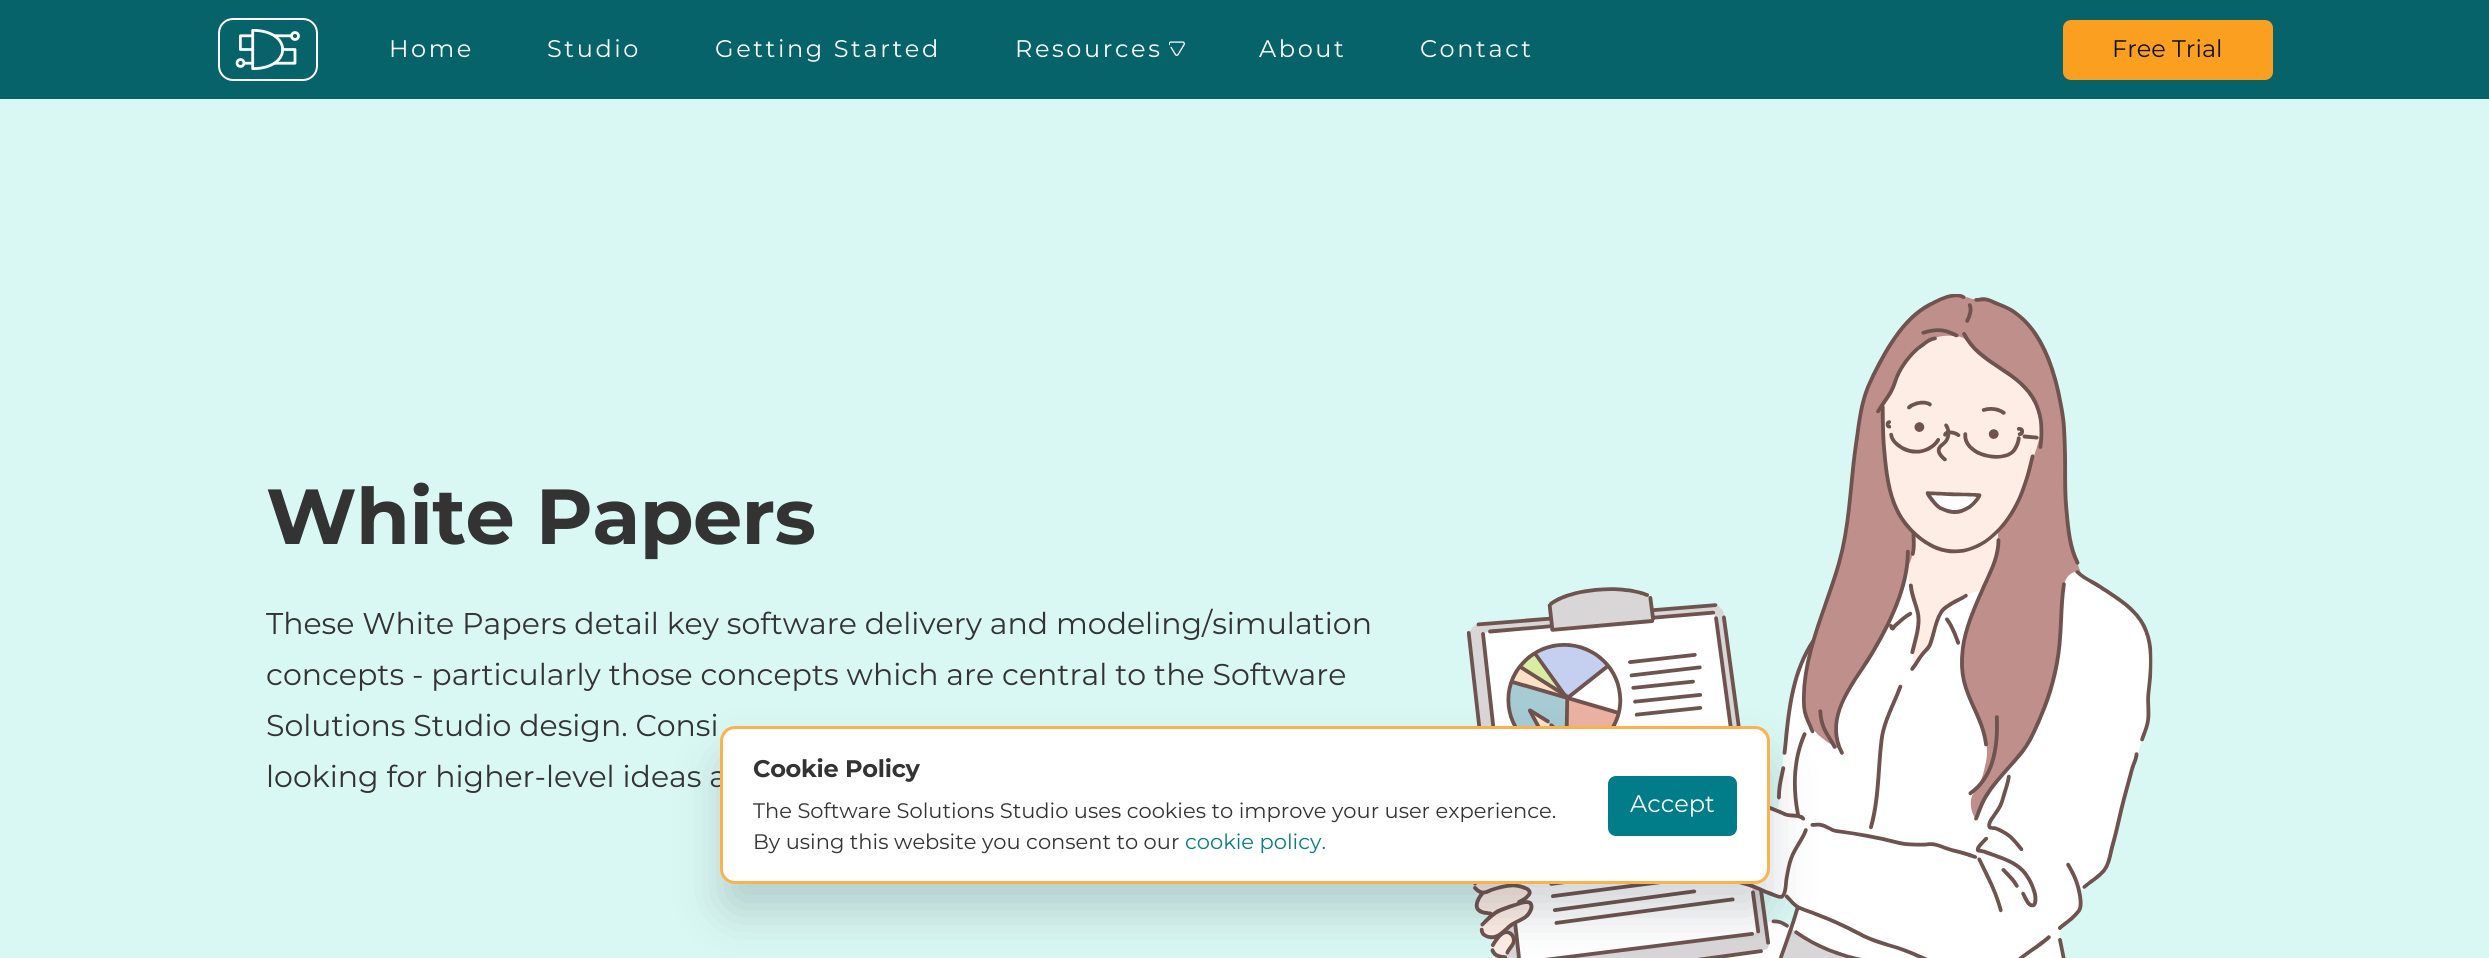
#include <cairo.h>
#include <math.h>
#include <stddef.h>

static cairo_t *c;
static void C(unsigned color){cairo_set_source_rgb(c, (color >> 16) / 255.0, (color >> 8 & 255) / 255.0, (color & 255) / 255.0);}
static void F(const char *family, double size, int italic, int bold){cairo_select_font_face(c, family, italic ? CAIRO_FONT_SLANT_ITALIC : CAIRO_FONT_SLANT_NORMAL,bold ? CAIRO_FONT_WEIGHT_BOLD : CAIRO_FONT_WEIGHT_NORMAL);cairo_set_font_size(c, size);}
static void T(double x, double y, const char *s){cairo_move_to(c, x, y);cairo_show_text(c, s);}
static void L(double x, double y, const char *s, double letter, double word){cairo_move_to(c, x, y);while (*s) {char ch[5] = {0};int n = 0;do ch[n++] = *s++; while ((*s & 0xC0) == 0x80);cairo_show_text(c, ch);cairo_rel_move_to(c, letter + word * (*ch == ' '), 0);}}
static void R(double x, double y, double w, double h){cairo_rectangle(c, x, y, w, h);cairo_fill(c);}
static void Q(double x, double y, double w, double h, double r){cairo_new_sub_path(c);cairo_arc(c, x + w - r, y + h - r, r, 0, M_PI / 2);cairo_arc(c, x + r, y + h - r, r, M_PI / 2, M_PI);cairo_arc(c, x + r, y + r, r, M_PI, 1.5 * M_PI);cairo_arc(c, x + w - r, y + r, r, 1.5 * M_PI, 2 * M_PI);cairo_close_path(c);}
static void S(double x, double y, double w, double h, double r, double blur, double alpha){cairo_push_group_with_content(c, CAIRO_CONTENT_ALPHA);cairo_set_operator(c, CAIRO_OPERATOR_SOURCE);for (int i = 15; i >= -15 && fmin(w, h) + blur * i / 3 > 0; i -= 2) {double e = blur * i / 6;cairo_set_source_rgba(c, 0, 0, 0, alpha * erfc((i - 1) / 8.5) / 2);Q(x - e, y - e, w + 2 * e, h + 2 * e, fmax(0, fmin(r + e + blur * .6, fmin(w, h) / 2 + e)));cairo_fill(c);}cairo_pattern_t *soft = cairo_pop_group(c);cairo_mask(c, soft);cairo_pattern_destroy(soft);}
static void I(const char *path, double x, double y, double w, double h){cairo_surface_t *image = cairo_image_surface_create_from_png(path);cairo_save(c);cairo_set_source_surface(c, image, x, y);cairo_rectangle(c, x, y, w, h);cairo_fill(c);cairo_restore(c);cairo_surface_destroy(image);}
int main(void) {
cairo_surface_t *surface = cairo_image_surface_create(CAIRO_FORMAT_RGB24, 2489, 958);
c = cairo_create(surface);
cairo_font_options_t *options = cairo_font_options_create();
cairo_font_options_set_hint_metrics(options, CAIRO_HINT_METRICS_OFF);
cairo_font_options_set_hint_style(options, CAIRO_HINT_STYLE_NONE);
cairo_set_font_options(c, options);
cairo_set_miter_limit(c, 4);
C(0xd9f8f3);
cairo_paint(c);
C(0x066369);
R(0,0,2489,99);
Q(219,19,98,61,14);
C(0xffffff);
cairo_stroke(c);
I("1.png",235,28,65,43);
F("Montserrat",24,0,0);
L(389,57,"Home",2.6,0);
L(547,57,"Studio",2.6,0);
L(715,57,"Getting Started",2.6,0);
L(1015,57,"Resources",2.6,0);
I("2.png",1169,41,16,15);
L(1259,57,"About",2.6,0);
L(1420,57,"Contact",2.6,0);
C(0xfa9f1f);
Q(2064.5,21.5,207,57,6.5);
cairo_fill_preserve(c);
cairo_set_line_width(c,3);
cairo_stroke(c);
C(0x131313);
T(2112,57,"Free Trial");
F("Montserrat",78,0,1);
C(0x333333);
L(266,544,"White Papers",-.6,0);
F("Montserrat",30,0,0);
T(266,634,"These White Papers detail key software delivery and modeling/simulation");
T(266,685,"concepts - particularly those concepts which are central to the Software");
T(266,736,"Solutions Studio design. Consi");
T(266,787,"looking for higher-level ideas a");
I("3.png",1467,294,686,664);
C(0x273441);
S(720,756,1050,158,15,22.5,.2);
C(0xffffff);
Q(721.5,727.5,1047,155,13.5);
cairo_fill_preserve(c);
C(0xfbb24c);
cairo_stroke(c);
F("Montserrat",24,0,1);
C(0x333333);
L(753,777,"Cookie Policy",-.25,0);
F("Montserrat",21,0,0);
T(753,818,"The Software Solutions Studio uses cookies to improve your user experience.");
T(753,849,"By using this website you consent to our");
C(0x087d85);
T(1185,849,"cookie policy.");
C(0x017c89);
Q(1608,776,129,60,8);
cairo_fill(c);
F("Montserrat",24,0,0);
C(0xffffff);
T(1630,812,"Accept");
cairo_surface_write_to_png(surface, "o.png");
cairo_font_options_destroy(options);
cairo_destroy(c);
cairo_surface_destroy(surface);
return 0;
}
